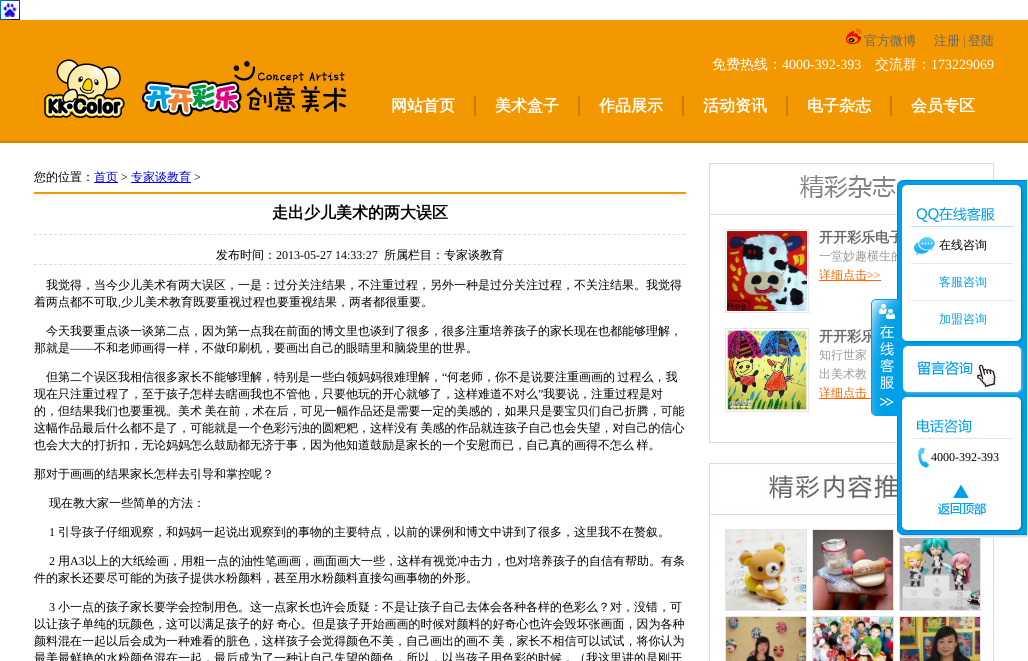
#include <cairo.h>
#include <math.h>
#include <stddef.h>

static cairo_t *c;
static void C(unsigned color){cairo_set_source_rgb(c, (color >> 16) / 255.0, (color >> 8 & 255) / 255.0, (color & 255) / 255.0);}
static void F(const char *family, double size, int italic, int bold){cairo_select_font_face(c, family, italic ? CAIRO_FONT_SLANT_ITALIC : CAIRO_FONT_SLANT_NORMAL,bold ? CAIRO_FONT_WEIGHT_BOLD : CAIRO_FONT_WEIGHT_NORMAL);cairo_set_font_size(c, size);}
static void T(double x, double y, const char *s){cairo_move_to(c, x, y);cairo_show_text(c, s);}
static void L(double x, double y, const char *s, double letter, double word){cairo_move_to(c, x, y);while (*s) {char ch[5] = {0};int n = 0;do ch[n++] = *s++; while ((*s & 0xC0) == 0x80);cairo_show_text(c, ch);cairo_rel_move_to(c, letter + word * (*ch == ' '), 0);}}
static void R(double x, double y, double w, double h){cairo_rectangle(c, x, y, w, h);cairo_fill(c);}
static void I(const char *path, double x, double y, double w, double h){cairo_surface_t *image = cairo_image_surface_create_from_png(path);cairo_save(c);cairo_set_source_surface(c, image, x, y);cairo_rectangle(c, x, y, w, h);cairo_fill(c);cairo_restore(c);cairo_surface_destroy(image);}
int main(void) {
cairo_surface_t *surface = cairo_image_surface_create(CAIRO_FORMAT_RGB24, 1028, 661);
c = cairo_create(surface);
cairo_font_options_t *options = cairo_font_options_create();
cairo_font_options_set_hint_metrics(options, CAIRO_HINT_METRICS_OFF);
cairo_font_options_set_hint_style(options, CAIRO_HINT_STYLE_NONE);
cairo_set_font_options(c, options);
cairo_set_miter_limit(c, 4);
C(0xffffff);
cairo_paint(c);
I("1.png",0,0,20,20);
I("2.png",0,20,1028,123);
I("3.png",44,59,302,65);
I("4.png",845,28,17,16);
F("WenQuanYi Zen Hei Medium",13,0,0);
C(0x666666);
T(864,45,"官方微博");
T(934,45,"注册");
F("Liberation Serif",12,0,0);
T(963,45,"|");
F("WenQuanYi Zen Hei Medium",13,0,0);
T(968,45,"登陆");
F("WenQuanYi Zen Hei Medium",14,0,0);
C(0xffffff);
T(712,69,"免费热线：");
F("Liberation Serif",14,0,0);
T(782,69,"4000-392-393");
F("WenQuanYi Zen Hei Medium",14,0,0);
T(875,69,"交流群：");
F("Liberation Serif",14,0,0);
T(931,69,"173229069");
F("WenQuanYi Zen Hei",16,0,1);
T(391,111,"网站首页");
I("5.png",474,96,2,20);
T(495,111,"美术盒子");
I("5.png",578,96,2,20);
T(599,111,"作品展示");
I("5.png",682,96,2,20);
T(703,111,"活动资讯");
I("5.png",786,96,2,20);
T(807,111,"电子杂志");
I("5.png",890,96,2,20);
T(911,111,"会员专区");
C(0xf29901);
R(34,192,652,2);
F("WenQuanYi Zen Hei Medium",12,0,0);
C(0x000000);
T(34,181,"您的位置：");
C(0x0000ee);
R(94,182,24,1);
T(94,181,"首页");
F("Liberation Serif",12,0,0);
C(0x000000);
T(121,181,">");
C(0x0000ee);
R(131,182,60,1);
F("WenQuanYi Zen Hei Medium",12,0,0);
T(131,181,"专家谈教育");
F("Liberation Serif",12,0,0);
C(0x000000);
T(194,181,">");
cairo_new_path(c);
cairo_move_to(c,34,234.5);
cairo_line_to(c,686,234.5);
C(0xdddddd);
cairo_set_line_width(c,1);
cairo_set_dash(c,(double[]){3,1.99},2,0);
cairo_stroke(c);
F("WenQuanYi Zen Hei",16,0,1);
C(0x000000);
T(272,218,"走出少儿美术的两大误区");
cairo_new_path(c);
cairo_move_to(c,34,264.5);
cairo_line_to(c,686,264.5);
C(0xdddddd);
cairo_stroke(c);
F("WenQuanYi Zen Hei Medium",12,0,0);
C(0x000000);
T(216,259,"发布时间：");
F("Liberation Serif",12,0,0);
T(276,259,"2013-05-27 14:33:27");
F("WenQuanYi Zen Hei Medium",12,0,0);
T(384,259,"所属栏目：专家谈教育");
T(46,289,"我觉得，当今少儿美术有两大误区，一是：过分关注结果，不注重过程，另外一种是过分关注过程，不关注结果。我觉得");
T(34,306,"着两点都不可取");
F("Liberation Serif",12,0,0);
T(118,306,",");
F("WenQuanYi Zen Hei Medium",12,0,0);
T(121,306,"少儿美术教育既要重视过程也要重视结果，两者都很重要。");
T(46,335,"今天我要重点谈一谈第二点，因为第一点我在前面的博文里也谈到了很多，很多注重培养孩子的家长现在也都能够理解，");
T(34,352,"那就是");
F("Liberation Serif",12,0,0);
T(70,352,"——");
F("WenQuanYi Zen Hei Medium",12,0,0);
T(94,352,"不和老师画得一样，不做印刷机，要画出自己的眼睛里和脑袋里的世界。");
T(46,381,"但第二个误区我相信很多家长不能够理解，特别是一些白领妈妈很难理解，");
F("Liberation Serif",12,0,0);
T(442,381,"“");
F("WenQuanYi Zen Hei Medium",12,0,0);
L(447,381,"何老师，你不是说要注重画画的 过程么，我",0,-1);
T(34,398,"现在只注重过程了，至于孩子怎样去瞎画我也不管他，只要他玩的开心就够了，这样难道不对么");
F("Liberation Serif",12,0,0);
T(538,398,"”");
F("WenQuanYi Zen Hei Medium",12,0,0);
T(543,398,"我要说，注重过程是对");
L(34,415,"的，但结果我们也要重视。美术 美在前，术在后，可见一幅作品还是需要一定的美感的，如果只是要宝贝们自己折腾，可能",0,-1);
L(34,432,"这幅作品最后什么都不是了，可能就是一个色彩污浊的圆粑粑，这样没有 美感的作品就连孩子自己也会失望，对自己的信心",0,-1);
L(34,449,"也会大大的打折扣，无论妈妈怎么鼓励都无济于事，因为他知道鼓励是家长的一个安慰而已，自己真的画得不怎么 样。",0,-1);
T(34,478,"那对于画画的结果家长怎样去引导和掌控呢？");
T(49,507,"现在教大家一些简单的方法：");
F("Liberation Serif",12,0,0);
T(49,536,"1");
F("WenQuanYi Zen Hei Medium",12,0,0);
T(58,536,"引导孩子仔细观察，和妈妈一起说出观察到的事物的主要特点，以前的课例和博文中讲到了很多，这里我不在赘叙。");
F("Liberation Serif",12,0,0);
T(49,565,"2");
F("WenQuanYi Zen Hei Medium",12,0,0);
T(58,565,"用");
F("Liberation Serif",12,0,0);
T(70,565,"A3");
F("WenQuanYi Zen Hei Medium",12,0,0);
T(85,565,"以上的大纸绘画，用粗一点的油性笔画画，画面画大一些，这样有视觉冲击力，也对培养孩子的自信有帮助。有条");
T(34,582,"件的家长还要尽可能的为孩子提供水粉颜料，甚至用水粉颜料直接勾画事物的外形。");
F("Liberation Serif",12,0,0);
T(49,611,"3");
F("WenQuanYi Zen Hei Medium",12,0,0);
T(58,611,"小一点的孩子家长要学会控制用色。这一点家长也许会质疑：不是让孩子自己去体会各种各样的色彩么？对，没错，可");
L(34,628,"以让孩子单纯的玩颜色，这可以满足孩子的好 奇心。但是孩子开始画画的时候对颜料的好奇心也许会毁坏张画面，因为各种",0,-1);
L(34,645,"颜料混在一起以后会成为一种难看的脏色，这样孩子会觉得颜色不美，自己画出的画不 美，家长不相信可以试试，将你认为",0,-1);
T(34,662,"最美最鲜艳的水粉颜色混在一起，最后成为了一种让自己失望的颜色，所以，以当孩子用色彩的时候，（我这里讲的是刚开");
I("6.png",710,164,283,67);
cairo_rectangle(c,709.5,163.5,284,279);
C(0xdcdcdc);
cairo_set_dash(c,NULL,0,0);
cairo_stroke(c);
cairo_rectangle(c,725.5,229.5,83,83);
C(0xe5e5e5);
cairo_stroke(c);
I("7.png",727,231,80,80);
F("WenQuanYi Zen Hei",14,0,1);
C(0x666666);
T(819,242,"开开彩乐电子");
F("WenQuanYi Zen Hei Medium",12,0,0);
C(0x999999);
T(819,260,"一堂妙趣横生的");
C(0xff6600);
R(819,280,62,1);
T(819,279,"详细点击");
F("Liberation Serif",12,0,0);
T(867,279,">>");
cairo_rectangle(c,725.5,328.5,83,83);
C(0xe5e5e5);
cairo_stroke(c);
I("8.png",727,330,80,80);
F("WenQuanYi Zen Hei",14,0,1);
C(0x666666);
T(819,341,"开开彩乐");
F("WenQuanYi Zen Hei Medium",12,0,0);
C(0x999999);
T(819,359,"知行世家");
T(819,378,"出美术教");
C(0xff6600);
R(819,398,52,1);
T(819,397,"详细点击");
I("9.png",710,464,187,67);
cairo_rectangle(c,709.5,463.5,284,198);
C(0xdcdcdc);
cairo_stroke(c);
cairo_rectangle(c,725.5,529.5,81,81);
C(0xe5e5e5);
cairo_stroke(c);
I("10.png",726,530,80,80);
cairo_rectangle(c,812.5,529.5,81,81);
cairo_stroke(c);
I("11.png",813,530,80,80);
cairo_rectangle(c,899.5,529.5,81,81);
cairo_stroke(c);
I("12.png",900,537,80,73);
cairo_rectangle(c,725.5,616.5,81,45);
cairo_stroke(c);
I("13.png",726,617,80,44);
cairo_rectangle(c,812.5,616.5,81,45);
cairo_stroke(c);
I("14.png",813,617,80,44);
cairo_rectangle(c,899.5,616.5,81,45);
cairo_stroke(c);
I("15.png",900,617,80,44);
I("19.png",897,190,130,336);
I("16.png",871,299,28,117);
I("17.png",897,526,130,12);
I("18.png",897,180,130,10);
C(0xace5f9);
R(911,226,102,1);
I("20.png",916,207,79,15);
C(0xe6e5e4);
R(911,263,102,1);
I("21.png",914,237,21,18);
C(0x000000);
T(939,249,"在线咨询");
C(0xe6e5e4);
R(911,300,102,1);
C(0x00a0e9);
T(939,286,"客服咨询");
T(939,323,"加盟咨询");
I("22.png",899,337,126,65);
I("23.png",902,345,122,50);
C(0xe6e5e4);
R(911,438,102,1);
I("24.png",917,419,55,14);
I("25.png",918,447,12,21);
F("Liberation Serif",12,0,0);
C(0x000000);
T(931,461,"4000-392-393");
I("26.png",938,485,48,30);
cairo_surface_write_to_png(surface, "o.png");
cairo_font_options_destroy(options);
cairo_destroy(c);
cairo_surface_destroy(surface);
return 0;
}
